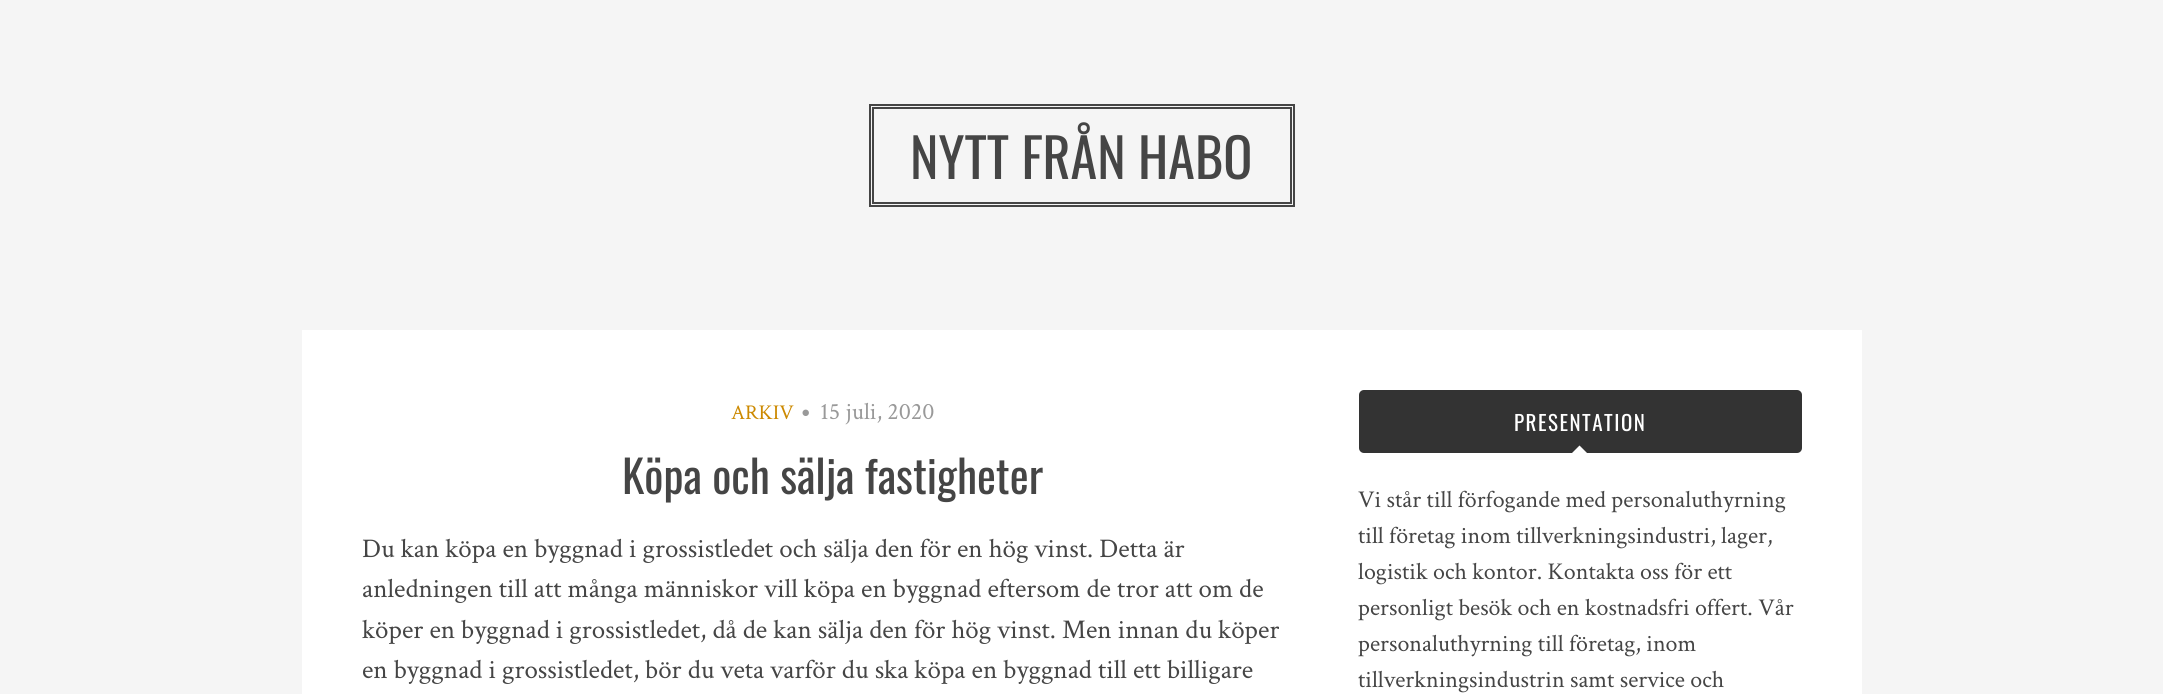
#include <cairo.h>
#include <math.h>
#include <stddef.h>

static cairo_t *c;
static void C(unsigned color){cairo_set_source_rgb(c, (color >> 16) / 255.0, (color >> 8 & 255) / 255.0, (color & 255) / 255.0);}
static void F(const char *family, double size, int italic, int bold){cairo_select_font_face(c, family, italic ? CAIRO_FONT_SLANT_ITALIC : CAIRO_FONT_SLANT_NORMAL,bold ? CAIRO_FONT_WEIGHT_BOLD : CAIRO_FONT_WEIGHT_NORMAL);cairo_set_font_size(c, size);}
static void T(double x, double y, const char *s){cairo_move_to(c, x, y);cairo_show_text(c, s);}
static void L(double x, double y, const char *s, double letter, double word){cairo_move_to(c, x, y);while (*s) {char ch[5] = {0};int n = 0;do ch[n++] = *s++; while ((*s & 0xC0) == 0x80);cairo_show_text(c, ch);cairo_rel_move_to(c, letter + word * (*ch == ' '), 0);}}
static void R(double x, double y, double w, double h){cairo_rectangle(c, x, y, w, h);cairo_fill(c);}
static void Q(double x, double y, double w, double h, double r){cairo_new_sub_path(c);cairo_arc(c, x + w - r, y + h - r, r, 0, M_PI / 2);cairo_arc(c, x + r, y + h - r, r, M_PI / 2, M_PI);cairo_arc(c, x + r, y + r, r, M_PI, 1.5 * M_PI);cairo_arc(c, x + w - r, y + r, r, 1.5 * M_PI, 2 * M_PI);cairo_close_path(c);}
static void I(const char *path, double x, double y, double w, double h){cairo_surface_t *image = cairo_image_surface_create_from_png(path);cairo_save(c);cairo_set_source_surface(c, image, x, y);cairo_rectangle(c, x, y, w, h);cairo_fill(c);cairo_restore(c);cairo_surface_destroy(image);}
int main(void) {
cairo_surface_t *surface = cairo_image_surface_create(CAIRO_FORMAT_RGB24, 2163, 694);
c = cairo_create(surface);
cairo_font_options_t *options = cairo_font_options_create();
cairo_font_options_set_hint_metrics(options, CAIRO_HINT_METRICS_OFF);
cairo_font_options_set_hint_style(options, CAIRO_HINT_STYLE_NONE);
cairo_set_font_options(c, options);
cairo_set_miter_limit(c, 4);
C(0xf5f5f5);
cairo_paint(c);
cairo_rectangle(c,870,105,424,101);
C(0x454545);
cairo_stroke(c);
cairo_rectangle(c,873,108,418,95);
cairo_stroke(c);
F("Oswald",54,0,0);
T(910,179,"NYTT FRÅN HABO");
C(0xffffff);
R(302,330,1560,364);
F("Crimson Text",21,0,0);
C(0xcc8900);
T(731,419,"ARKIV");
I("1.png",802,409,7,7);
F("Crimson Text",24,0,0);
C(0x999999);
T(820,419,"15 juli, 2020");
F("Oswald",45,0,0);
C(0x454545);
T(622,494,"Köpa och sälja fastigheter");
F("Crimson Text",27,0,0);
T(362,557,"Du kan köpa en byggnad i grossistledet och sälja den för en hög vinst. Detta är");
T(362,597,"anledningen till att många människor vill köpa en byggnad eftersom de tror att om de");
T(362,638,"köper en byggnad i grossistledet, då de kan sälja den för hög vinst. Men innan du köper");
T(362,678,"en byggnad i grossistledet, bör du veta varför du ska köpa en byggnad till ett billigare");
C(0x333333);
Q(1359,390,443,63,5);
cairo_fill(c);
F("Oswald",21,0,0);
C(0xffffff);
L(1514,431,"PRESENTATION",1.5,0);
cairo_new_path(c);
cairo_move_to(c,1587,453);
cairo_line_to(c,1572,453);
cairo_line_to(c,1579.5,445.5);
cairo_close_path(c);
cairo_fill(c);
F("Crimson Text",24,0,0);
C(0x454545);
T(1358,507,"Vi står till förfogande med personaluthyrning");
T(1358,543,"till företag inom tillverkningsindustri, lager,");
T(1358,579,"logistik och kontor. Kontakta oss för ett");
T(1358,615,"personligt besök och en kostnadsfri offert. Vår");
T(1358,651,"personaluthyrning till företag, inom");
T(1358,687,"tillverkningsindustrin samt service och");
cairo_surface_write_to_png(surface, "o.png");
cairo_font_options_destroy(options);
cairo_destroy(c);
cairo_surface_destroy(surface);
return 0;
}
